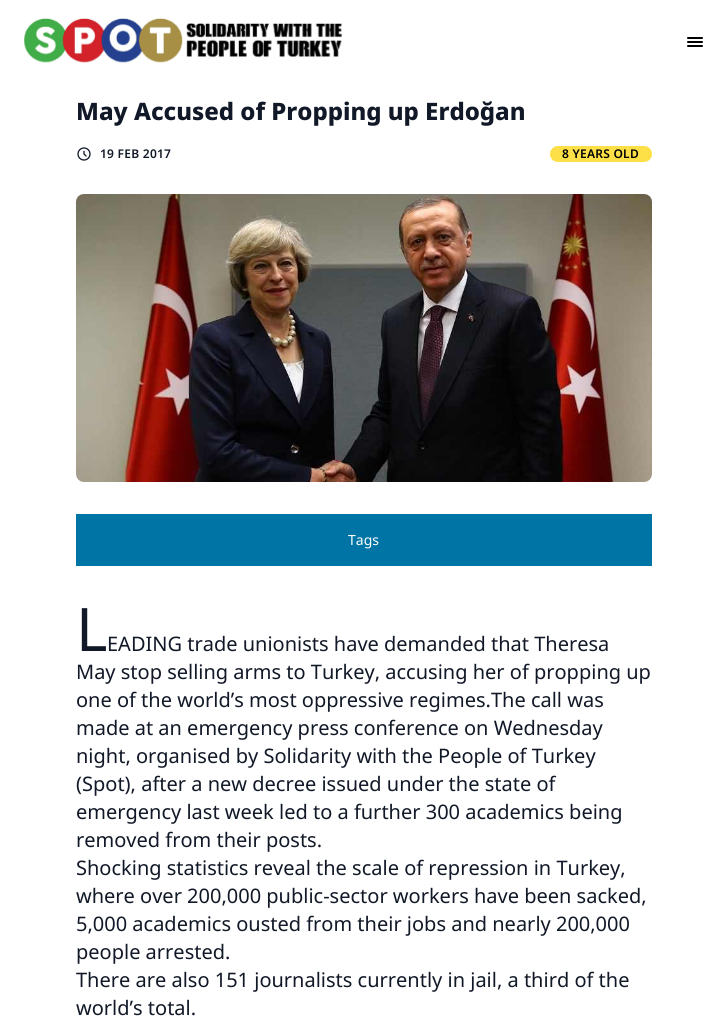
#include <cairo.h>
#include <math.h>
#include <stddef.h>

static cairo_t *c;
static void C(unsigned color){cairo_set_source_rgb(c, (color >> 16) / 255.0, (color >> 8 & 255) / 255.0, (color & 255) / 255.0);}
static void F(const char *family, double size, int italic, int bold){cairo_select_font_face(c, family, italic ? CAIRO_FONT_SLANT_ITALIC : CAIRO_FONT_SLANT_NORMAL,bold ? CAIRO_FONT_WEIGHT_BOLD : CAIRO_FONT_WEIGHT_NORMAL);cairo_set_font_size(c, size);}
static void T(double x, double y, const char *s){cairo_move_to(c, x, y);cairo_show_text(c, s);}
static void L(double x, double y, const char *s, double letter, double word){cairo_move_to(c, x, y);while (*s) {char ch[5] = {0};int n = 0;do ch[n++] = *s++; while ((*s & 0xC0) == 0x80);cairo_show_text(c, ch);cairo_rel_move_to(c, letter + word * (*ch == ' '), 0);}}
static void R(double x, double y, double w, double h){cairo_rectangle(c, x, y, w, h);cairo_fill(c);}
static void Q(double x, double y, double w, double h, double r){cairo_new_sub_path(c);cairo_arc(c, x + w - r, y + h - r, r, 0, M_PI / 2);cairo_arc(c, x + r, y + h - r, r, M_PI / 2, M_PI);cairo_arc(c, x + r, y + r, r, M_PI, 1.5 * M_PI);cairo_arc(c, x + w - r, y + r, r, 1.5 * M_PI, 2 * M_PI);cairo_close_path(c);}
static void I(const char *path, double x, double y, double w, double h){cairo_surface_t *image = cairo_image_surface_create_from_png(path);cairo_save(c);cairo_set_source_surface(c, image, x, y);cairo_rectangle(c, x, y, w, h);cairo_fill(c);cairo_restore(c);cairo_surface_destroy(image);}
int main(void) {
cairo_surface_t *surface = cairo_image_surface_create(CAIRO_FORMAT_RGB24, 727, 1025);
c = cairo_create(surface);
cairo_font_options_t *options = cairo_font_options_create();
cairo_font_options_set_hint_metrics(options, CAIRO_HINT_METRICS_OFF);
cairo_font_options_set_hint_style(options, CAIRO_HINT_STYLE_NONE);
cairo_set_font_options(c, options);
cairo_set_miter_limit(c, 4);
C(0xffffff);
cairo_paint(c);
I("1.png",24,18,318,45);
C(0x000000);
Q(687,37,16,2,1);
cairo_fill(c);
Q(687,41,16,2,1);
cairo_fill(c);
Q(687,45,16,2,1);
cairo_fill(c);
F("Noto Sans ExtraBold",24,0,0);
C(0x111827);
T(76,120,"May Accused of Propping up Erdoğan");
I("2.png",77,147,14,14);
F("Noto Sans SemiBold",12,0,0);
L(100,158,"19 FEB 2017",.25,0);
C(0xfde047);
Q(550,146,102,16,8);
cairo_fill(c);
C(0x000000);
L(562,158,"8 YEARS OLD",.25,0);
I("3.png",76,194,576,288);
C(0x0074a5);
R(76,514,576,52);
F("Noto Sans",14,0,0);
C(0xffffff);
T(348,545,"Tags");
F("Noto Sans",60,0,0);
C(0x111827);
T(76,651,"L");
F("Noto Sans",20,0,0);
T(107,651,"EADING trade unionists have demanded that Theresa");
T(76,679,"May stop selling arms to Turkey, accusing her of propping up");
T(76,707,"one of the world’s most oppressive regimes.The call was");
T(76,735,"made at an emergency press conference on Wednesday");
T(76,763,"night, organised by Solidarity with the People of Turkey");
T(76,791,"(Spot), after a new decree issued under the state of");
T(76,819,"emergency last week led to a further 300 academics being");
T(76,847,"removed from their posts.");
T(76,875,"Shocking statistics reveal the scale of repression in Turkey,");
T(76,903,"where over 200,000 public-sector workers have been sacked,");
T(76,931,"5,000 academics ousted from their jobs and nearly 200,000");
T(76,959,"people arrested.");
T(76,987,"There are also 151 journalists currently in jail, a third of the");
T(76,1015,"world’s total.");
cairo_surface_write_to_png(surface, "o.png");
cairo_font_options_destroy(options);
cairo_destroy(c);
cairo_surface_destroy(surface);
return 0;
}
